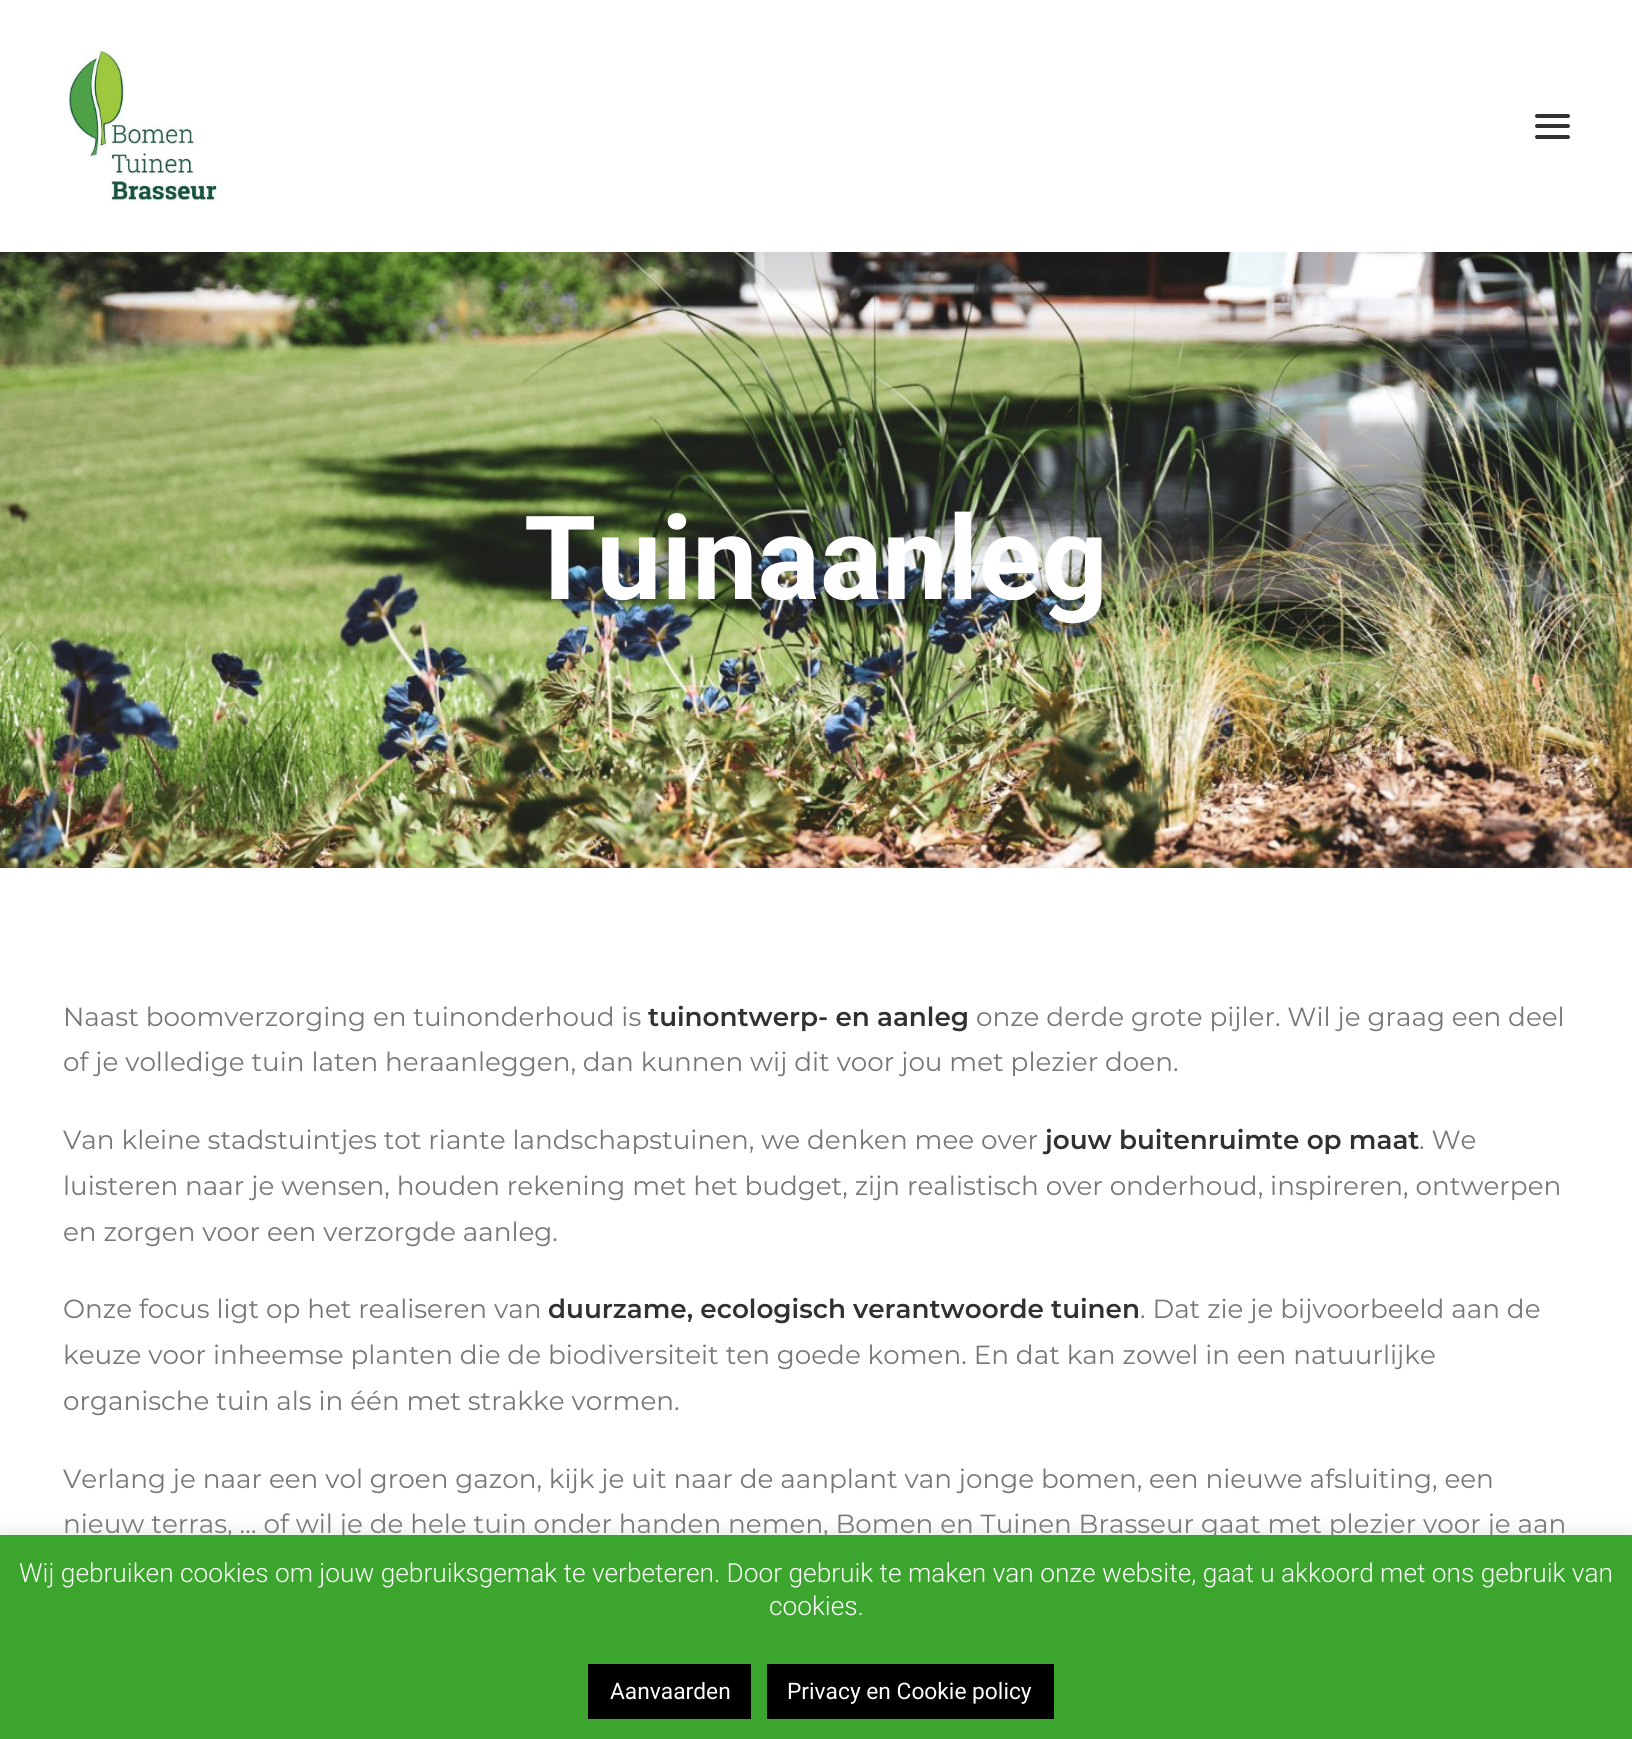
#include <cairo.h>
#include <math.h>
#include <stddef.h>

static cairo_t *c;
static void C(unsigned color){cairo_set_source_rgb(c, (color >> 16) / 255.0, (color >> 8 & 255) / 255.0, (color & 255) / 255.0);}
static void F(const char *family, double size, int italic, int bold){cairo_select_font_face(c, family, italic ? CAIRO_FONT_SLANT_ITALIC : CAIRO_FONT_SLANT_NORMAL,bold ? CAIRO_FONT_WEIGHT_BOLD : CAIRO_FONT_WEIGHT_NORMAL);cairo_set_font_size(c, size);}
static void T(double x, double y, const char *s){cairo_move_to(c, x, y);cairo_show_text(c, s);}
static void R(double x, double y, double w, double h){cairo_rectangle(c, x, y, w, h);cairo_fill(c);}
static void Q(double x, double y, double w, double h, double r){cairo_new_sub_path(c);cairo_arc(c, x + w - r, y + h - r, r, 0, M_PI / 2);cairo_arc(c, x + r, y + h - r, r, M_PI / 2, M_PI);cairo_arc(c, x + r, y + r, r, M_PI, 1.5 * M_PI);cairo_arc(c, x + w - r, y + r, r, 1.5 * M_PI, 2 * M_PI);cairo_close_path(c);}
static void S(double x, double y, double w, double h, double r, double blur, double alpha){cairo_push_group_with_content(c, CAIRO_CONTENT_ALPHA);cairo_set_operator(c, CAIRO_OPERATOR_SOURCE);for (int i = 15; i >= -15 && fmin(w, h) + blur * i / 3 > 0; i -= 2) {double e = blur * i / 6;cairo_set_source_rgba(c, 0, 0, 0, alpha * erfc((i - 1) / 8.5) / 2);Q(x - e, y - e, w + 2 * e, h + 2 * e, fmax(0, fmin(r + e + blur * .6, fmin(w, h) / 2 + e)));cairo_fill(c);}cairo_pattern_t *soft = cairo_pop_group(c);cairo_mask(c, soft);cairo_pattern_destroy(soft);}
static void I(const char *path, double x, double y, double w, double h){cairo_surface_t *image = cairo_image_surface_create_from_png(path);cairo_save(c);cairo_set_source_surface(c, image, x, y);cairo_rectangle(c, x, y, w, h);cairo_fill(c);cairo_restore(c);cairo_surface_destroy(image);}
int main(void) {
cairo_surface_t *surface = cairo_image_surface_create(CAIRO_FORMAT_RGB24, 1632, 1739);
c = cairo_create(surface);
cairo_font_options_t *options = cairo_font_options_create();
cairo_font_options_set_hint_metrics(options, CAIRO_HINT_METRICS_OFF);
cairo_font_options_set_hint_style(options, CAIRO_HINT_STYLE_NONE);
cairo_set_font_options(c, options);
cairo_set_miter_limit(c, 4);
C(0xffffff);
cairo_paint(c);
I("1.png",68,49,149,153);
C(0x303133);
Q(1535,124,35,4,2);
cairo_fill(c);
Q(1535,114,35,4,2);
cairo_fill(c);
Q(1535,135,35,4,2);
cairo_fill(c);
I("2.png",0,252,1632,616);
F("Roboto",116.5,0,1);
C(0xffffff);
T(524,599,"Tuinaanleg");
F("Montserrat",26.25,0,0);
C(0x777777);
T(63,1026,"Naast boomverzorging en tuinonderhoud is");
F("Montserrat SemiBold",26.25,0,0);
C(0x303133);
T(648,1026,"tuinontwerp- en aanleg");
F("Montserrat",26.25,0,0);
C(0x777777);
T(976,1026,"onze derde grote pijler. Wil je graag een deel");
T(63,1071,"of je volledige tuin laten heraanleggen, dan kunnen wij dit voor jou met plezier doen.");
T(63,1149,"Van kleine stadstuintjes tot riante landschapstuinen, we denken mee over");
F("Montserrat SemiBold",26.25,0,0);
C(0x303133);
T(1045,1149,"jouw buitenruimte op maat");
F("Montserrat",26.25,0,0);
C(0x777777);
T(1419,1149,". We");
T(63,1195,"luisteren naar je wensen, houden rekening met het budget, zijn realistisch over onderhoud, inspireren, ontwerpen");
T(63,1241,"en zorgen voor een verzorgde aanleg.");
T(63,1318,"Onze focus ligt op het realiseren van");
F("Montserrat SemiBold",26.25,0,0);
C(0x303133);
T(548,1318,"duurzame, ecologisch");
T(853,1318,"verantwoorde");
T(1051,1318,"tuinen");
F("Montserrat",26.25,0,0);
C(0x777777);
T(1140,1318,". Dat zie je bijvoorbeeld aan de");
T(63,1364,"keuze voor inheemse planten die de biodiversiteit ten goede komen. En dat kan zowel in een natuurlijke");
T(63,1410,"organische tuin als in één met strakke vormen.");
T(63,1488,"Verlang je naar een vol groen gazon, kijk je uit naar de aanplant van jonge bomen, een nieuwe afsluiting, een");
T(63,1533,"nieuw terras, … of wil je de hele tuin onder handen nemen, Bomen en Tuinen Brasseur gaat met plezier voor je aan");
C(0xacabab);
S(0,1533,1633,205,0,9,.3);
C(0x3ca52e);
R(0,1535,1632,204);
F("Roboto Light",26.25,0,0);
C(0xffffff);
T(19,1582,"Wij gebruiken cookies om jouw gebruiksgemak te verbeteren. Door gebruik te maken van onze website, gaat u akkoord met ons gebruik van");
T(769,1615,"cookies.");
C(0x000000);
R(588,1664,163,55);
F("Roboto",22.75,0,0);
C(0xffffff);
T(610,1699,"Aanvaarden");
C(0x000000);
R(767,1664,287,55);
C(0xffffff);
T(787,1699,"Privacy en Cookie policy");
cairo_surface_write_to_png(surface, "o.png");
cairo_font_options_destroy(options);
cairo_destroy(c);
cairo_surface_destroy(surface);
return 0;
}
